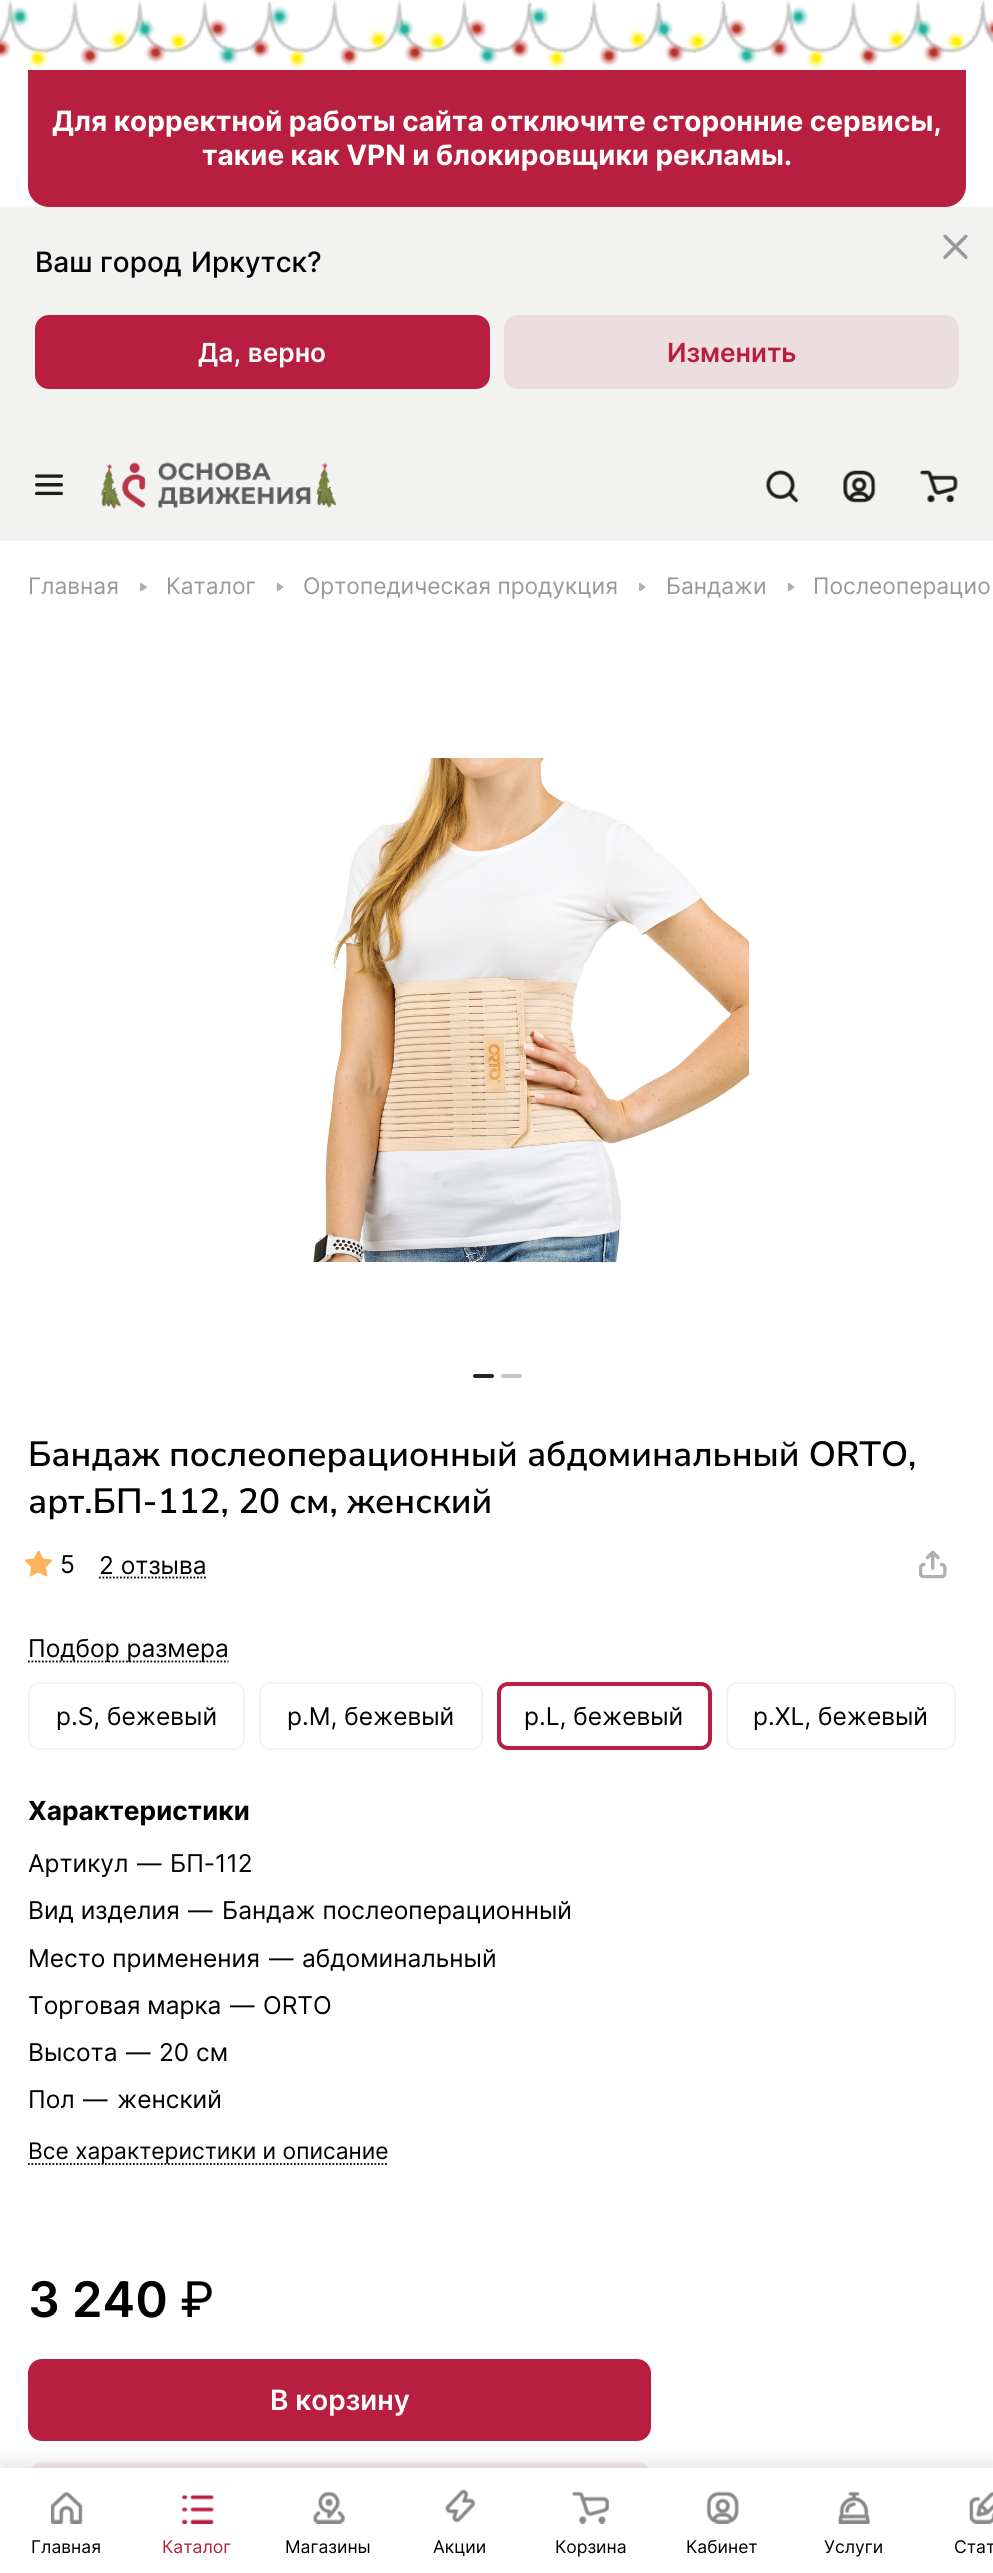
#include <cairo.h>
#include <math.h>
#include <stddef.h>

static cairo_t *c;
static void C(unsigned color){cairo_set_source_rgb(c, (color >> 16) / 255.0, (color >> 8 & 255) / 255.0, (color & 255) / 255.0);}
static void F(const char *family, double size, int italic, int bold){cairo_select_font_face(c, family, italic ? CAIRO_FONT_SLANT_ITALIC : CAIRO_FONT_SLANT_NORMAL,bold ? CAIRO_FONT_WEIGHT_BOLD : CAIRO_FONT_WEIGHT_NORMAL);cairo_set_font_size(c, size);}
static void T(double x, double y, const char *s){cairo_move_to(c, x, y);cairo_show_text(c, s);}
static void R(double x, double y, double w, double h){cairo_rectangle(c, x, y, w, h);cairo_fill(c);}
static void Q(double x, double y, double w, double h, double r){cairo_new_sub_path(c);cairo_arc(c, x + w - r, y + h - r, r, 0, M_PI / 2);cairo_arc(c, x + r, y + h - r, r, M_PI / 2, M_PI);cairo_arc(c, x + r, y + r, r, M_PI, 1.5 * M_PI);cairo_arc(c, x + w - r, y + r, r, 1.5 * M_PI, 2 * M_PI);cairo_close_path(c);}
static void S(double x, double y, double w, double h, double r, double blur, double alpha){cairo_push_group_with_content(c, CAIRO_CONTENT_ALPHA);cairo_set_operator(c, CAIRO_OPERATOR_SOURCE);for (int i = 15; i >= -15 && fmin(w, h) + blur * i / 3 > 0; i -= 2) {double e = blur * i / 6;cairo_set_source_rgba(c, 0, 0, 0, alpha * erfc((i - 1) / 8.5) / 2);Q(x - e, y - e, w + 2 * e, h + 2 * e, fmax(0, fmin(r + e + blur * .6, fmin(w, h) / 2 + e)));cairo_fill(c);}cairo_pattern_t *soft = cairo_pop_group(c);cairo_mask(c, soft);cairo_pattern_destroy(soft);}
static void I(const char *path, double x, double y, double w, double h){cairo_surface_t *image = cairo_image_surface_create_from_png(path);cairo_save(c);cairo_set_source_surface(c, image, x, y);cairo_rectangle(c, x, y, w, h);cairo_fill(c);cairo_restore(c);cairo_surface_destroy(image);}
int main(void) {
cairo_surface_t *surface = cairo_image_surface_create(CAIRO_FORMAT_RGB24, 993, 2573);
c = cairo_create(surface);
cairo_font_options_t *options = cairo_font_options_create();
cairo_font_options_set_hint_metrics(options, CAIRO_HINT_METRICS_OFF);
cairo_font_options_set_hint_style(options, CAIRO_HINT_STYLE_NONE);
cairo_set_font_options(c, options);
cairo_set_miter_limit(c, 4);
C(0xffffff);
cairo_paint(c);
I("1.png",0,0,993,70);
C(0xb71e3f);
cairo_new_path(c);
cairo_move_to(c,28,70);
cairo_line_to(c,966,70);
cairo_line_to(c,966,186);
cairo_curve_to(c,966,197.5,956.5,207,945,207);
cairo_line_to(c,49,207);
cairo_curve_to(c,37.5,207,28,197.5,28,186);
cairo_close_path(c);
cairo_fill(c);
F("Inter",28,0,1);
C(0xffffff);
T(52,131,"Для корректной работы сайта отключите сторонние сервисы,");
T(202,165,"такие как VPN и блокировщики рекламы.");
C(0xf2f2f1);
R(0,207,993,224);
I("2.png",943,234,25,25);
F("Inter Medium",28,0,0);
C(0x000000);
T(35,272,"Ваш город");
T(191,272,"Иркутск?");
C(0xb71e3f);
Q(36,316,453,72,13);
cairo_fill_preserve(c);
cairo_stroke(c);
F("Inter SemiBold",26.25,0,0);
C(0xffffff);
T(198,362,"Да, верно");
C(0xecdddf);
Q(504,315,455,74,14);
cairo_fill(c);
C(0xb71e3f);
T(667,362,"Изменить");
C(0xf2f2f1);
R(0,431,993,110);
I("3.png",35,474,28,22);
I("4.png",100,462,237,47);
I("5.png",766,470,33,33);
I("6.png",843,470,33,33);
I("7.png",920,470,38,33);
F("Inter",22.75,0,0);
C(0x999999);
T(28,594,"Главная");
I("8.png",140,583,7,8);
T(166,594,"Каталог");
I("9.png",276,583,8,9);
T(303,594,"Ортопедическая продукция");
I("10.png",639,583,7,8);
T(666,594,"Бандажи");
I("9.png",787,583,8,9);
T(813,594,"Послеоперацио");
I("11.png",313,758,436,504);
C(0x222222);
Q(473,1374,21,4,2);
cairo_fill(c);
C(0xc4c4c4);
Q(501,1374,21,4,2);
cairo_fill(c);
F("Nunito Sans SemiBold",35,0,0);
C(0x000000);
T(28,1466,"Бандаж послеоперационный абдоминальный ORTO,");
T(28,1513,"арт.БП-112, 20 см, женский");
I("12.png",25,1550,27,27);
F("Inter",24.5,0,0);
T(60,1573,"5");
T(99,1574,"2 отзыва");
cairo_new_path(c);
cairo_move_to(c,99,1577.5);
cairo_line_to(c,206.5,1577.5);
cairo_set_line_width(c,1.8);
cairo_set_dash(c,(double[]){1.75,1.75},2,0);
cairo_stroke(c);
I("13.png",919,1550,28,29);
cairo_new_path(c);
cairo_move_to(c,28,1661.5);
cairo_line_to(c,228.5,1661.5);
cairo_stroke(c);
T(28,1657,"Подбор размера");
Q(29,1683,215,66,10);
C(0xf2f2f1);
cairo_set_line_width(c,2);
cairo_set_dash(c,NULL,0,0);
cairo_stroke(c);
C(0x000000);
T(56,1725,"р.S, бежевый");
Q(260,1683,222,66,10);
C(0xf2f2f1);
cairo_stroke(c);
C(0x000000);
T(287,1725,"р.M, бежевый");
Q(499,1684,211,64,9);
C(0xb71e3f);
cairo_set_line_width(c,4);
cairo_stroke(c);
C(0x000000);
T(524,1725,"р.L, бежевый");
Q(727,1683,228,66,10);
C(0xf2f2f1);
cairo_set_line_width(c,2);
cairo_stroke(c);
C(0x000000);
T(753,1725,"р.XL, бежевый");
F("Inter",26.25,0,1);
T(28,1820,"Характеристики");
F("Inter",24.5,0,0);
T(28,1872,"Артикул");
T(137,1872,"—");
T(170,1872,"БП-112");
T(28,1919,"Вид изделия");
T(188,1919,"—");
T(222,1919,"Бандаж послеоперационный");
T(28,1967,"Место применения");
T(269,1967,"—");
T(302,1967,"абдоминальный");
T(28,2014,"Торговая марка");
T(230,2014,"—");
T(263,2014,"ORTO");
T(28,2061,"Высота");
T(126,2061,"—");
T(159,2061,"20 см");
T(28,2108,"Пол");
T(83,2108,"—");
T(117,2108,"женский");
cairo_new_path(c);
cairo_move_to(c,28,2164);
cairo_line_to(c,388.5,2164);
cairo_set_line_width(c,1.8);
cairo_set_dash(c,(double[]){1.75,1.75},2,0);
cairo_stroke(c);
F("Inter",22.75,0,0);
T(28,2159,"Все характеристики и описание");
F("Inter SemiBold",49,0,0);
T(28,2317,"3 240");
F("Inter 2",49,0,0);
T(180,2317,"₽");
C(0xb71e3f);
Q(29,2360,621,80,13);
cairo_fill_preserve(c);
cairo_set_line_width(c,2);
cairo_set_dash(c,NULL,0,0);
cairo_stroke(c);
F("Inter SemiBold",28,0,0);
C(0xffffff);
T(270,2410,"В корзину");
C(0xf8e9ec);
Q(28,2462,623,83,14);
cairo_fill(c);
C(0x000000);
S(0,2462,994,107,0,9,.1);
C(0xffffff);
R(0,2468,993,105);
I("14.png",51,2491,32,33);
F("Inter",17.5,0,0);
C(0x000000);
T(31,2553,"Главная");
I("15.png",181,2495,33,29);
C(0xb71e3f);
T(162,2553,"Каталог");
I("16.png",312,2491,33,33);
C(0x000000);
T(285,2553,"Магазины");
I("17.png",445,2489,30,34);
T(433,2553,"Акции");
I("18.png",571,2491,39,33);
T(555,2553,"Корзина");
I("19.png",706,2491,33,33);
T(686,2553,"Кабинет");
I("20.png",837,2491,33,33);
T(824,2553,"Услуги");
I("21.png",969,2491,24,33);
T(954,2553,"Стат");
cairo_surface_write_to_png(surface, "o.png");
cairo_font_options_destroy(options);
cairo_destroy(c);
cairo_surface_destroy(surface);
return 0;
}
